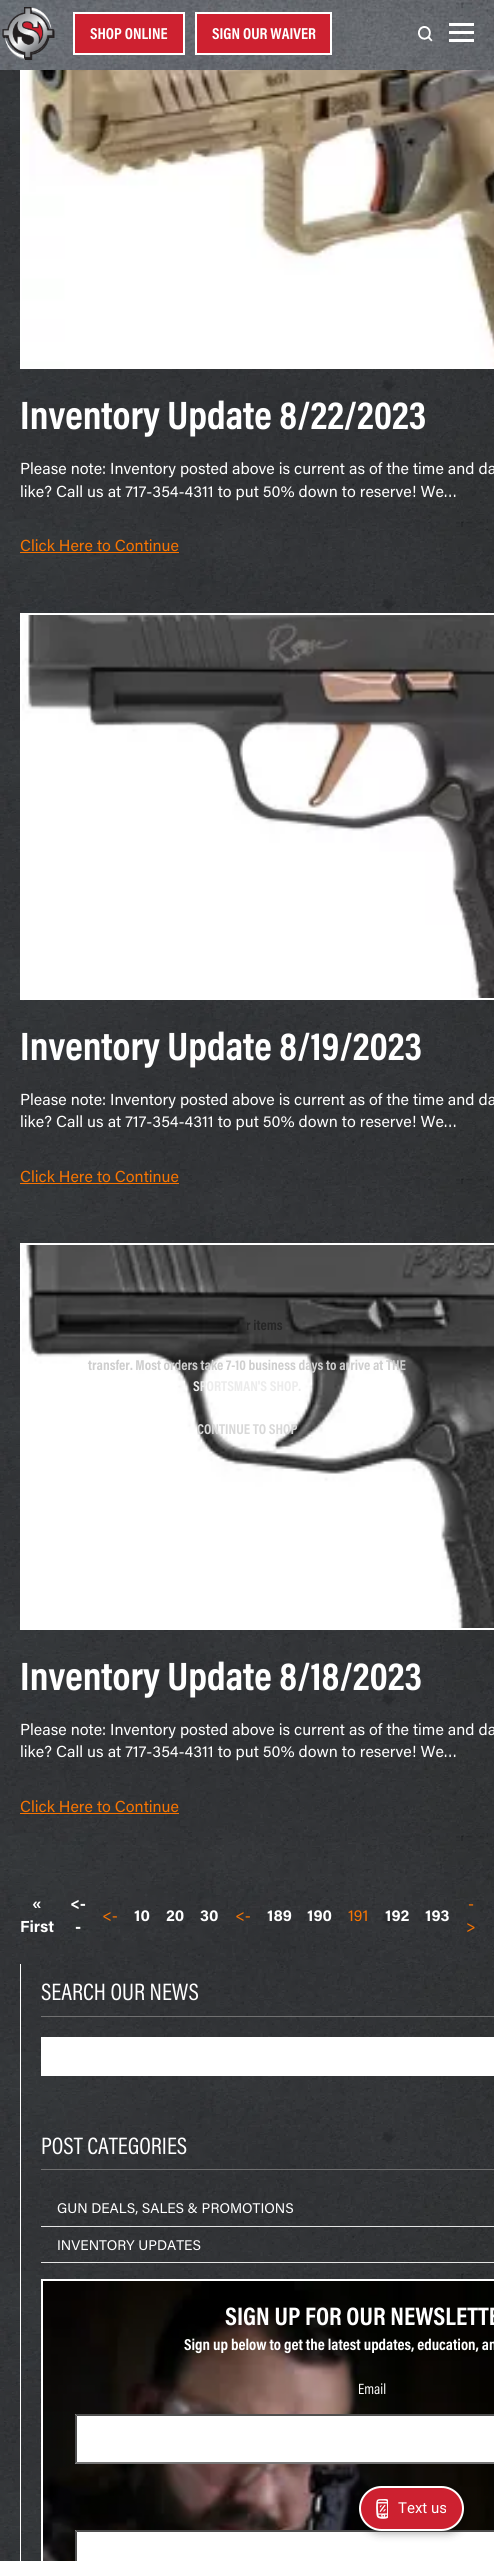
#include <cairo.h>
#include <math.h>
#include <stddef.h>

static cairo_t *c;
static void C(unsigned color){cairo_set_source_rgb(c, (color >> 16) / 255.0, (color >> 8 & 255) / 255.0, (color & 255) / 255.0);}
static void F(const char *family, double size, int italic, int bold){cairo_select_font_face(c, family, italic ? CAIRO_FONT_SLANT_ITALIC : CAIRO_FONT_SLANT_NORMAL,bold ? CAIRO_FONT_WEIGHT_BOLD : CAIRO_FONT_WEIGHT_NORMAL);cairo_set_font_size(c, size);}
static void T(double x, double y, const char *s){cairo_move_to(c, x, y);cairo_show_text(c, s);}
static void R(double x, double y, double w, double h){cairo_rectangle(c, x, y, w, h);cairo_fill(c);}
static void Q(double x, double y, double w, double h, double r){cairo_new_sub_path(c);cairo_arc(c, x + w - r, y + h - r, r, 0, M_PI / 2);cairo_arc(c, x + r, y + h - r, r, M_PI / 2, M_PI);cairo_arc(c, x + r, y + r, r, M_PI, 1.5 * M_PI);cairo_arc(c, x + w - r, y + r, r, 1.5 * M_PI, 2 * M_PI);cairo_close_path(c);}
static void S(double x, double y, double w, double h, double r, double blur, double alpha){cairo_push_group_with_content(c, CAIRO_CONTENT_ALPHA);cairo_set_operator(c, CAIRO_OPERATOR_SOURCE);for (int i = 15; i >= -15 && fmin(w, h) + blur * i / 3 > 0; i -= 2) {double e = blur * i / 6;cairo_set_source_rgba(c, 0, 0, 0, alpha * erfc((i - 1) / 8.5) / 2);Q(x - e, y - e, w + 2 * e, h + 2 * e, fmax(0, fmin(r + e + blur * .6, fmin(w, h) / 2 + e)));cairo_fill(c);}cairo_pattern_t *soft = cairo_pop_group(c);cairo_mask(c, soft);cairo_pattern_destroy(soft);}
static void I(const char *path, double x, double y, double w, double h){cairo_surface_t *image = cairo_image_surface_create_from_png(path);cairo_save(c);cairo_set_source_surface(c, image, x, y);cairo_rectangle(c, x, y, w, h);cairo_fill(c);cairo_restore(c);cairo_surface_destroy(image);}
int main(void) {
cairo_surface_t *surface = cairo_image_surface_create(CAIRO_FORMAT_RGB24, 494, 2561);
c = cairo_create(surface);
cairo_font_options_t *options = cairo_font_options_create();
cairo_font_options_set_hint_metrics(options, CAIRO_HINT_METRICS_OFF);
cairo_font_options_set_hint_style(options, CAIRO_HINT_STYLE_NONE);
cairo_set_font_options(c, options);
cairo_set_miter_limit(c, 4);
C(0x000000);
cairo_paint(c);
I("1.png",0,70,494,2491);
cairo_rectangle(c,21,-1,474,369);
C(0xffffff);
cairo_stroke(c);
I("2.png",0,0,494,70);
I("3.png",2,7,53,53);
C(0xce2130);
cairo_rectangle(c,74,13,110,41);
cairo_fill_preserve(c);
C(0xffffff);
cairo_stroke(c);
F("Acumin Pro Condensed",16,0,1);
T(90,39,"SHOP ONLINE");
C(0xce2130);
cairo_rectangle(c,196,13,135,41);
cairo_fill_preserve(c);
C(0xffffff);
cairo_stroke(c);
T(212,39,"SIGN OUR WAIVER");
I("4.png",418,26,15,16);
R(449,23,25,3);
R(449,31,25,3);
R(449,39,25,3);
I("5.png",22,70,472,297);
F("Acumin Pro Condensed",40,0,1);
T(20,429,"Inventory Update 8/22/2023");
F("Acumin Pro",16,0,0);
T(20,474,"Please note: Inventory posted above is current as of the time and da");
T(20,497,"like? Call us at 717-354-4311 to put 50% down to reserve! We…");
C(0xf87401);
T(20,551,"Click Here to Continue");
R(20,552,159,1);
cairo_rectangle(c,21,614,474,385);
C(0xffffff);
cairo_stroke(c);
I("6.png",22,615,472,383);
F("Acumin Pro Condensed",40,0,1);
T(20,1060,"Inventory Update 8/19/2023");
F("Acumin Pro",16,0,0);
T(20,1105,"Please note: Inventory posted above is current as of the time and da");
T(20,1127,"like? Call us at 717-354-4311 to put 50% down to reserve! We…");
C(0xf87401);
T(20,1182,"Click Here to Continue");
R(20,1183,159,1);
cairo_rectangle(c,21,1244,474,385);
C(0xffffff);
cairo_stroke(c);
I("7.png",22,1245,472,383);
F("Acumin Pro Condensed",40,0,1);
T(20,1690,"Inventory Update 8/18/2023");
F("Acumin Pro",16,0,0);
T(20,1735,"Please note: Inventory posted above is current as of the time and da");
T(20,1757,"like? Call us at 717-354-4311 to put 50% down to reserve! We…");
C(0xf87401);
T(20,1812,"Click Here to Continue");
R(20,1813,159,1);
F("Acumin Pro",16,0,1);
C(0xffffff);
T(32,1909,"«");
T(20,1932,"First");
T(70,1909,"<-");
T(75,1932,"-");
F("Acumin Pro",16,0,0);
C(0xf87401);
T(102,1921,"<-");
F("Acumin Pro",16,0,1);
C(0xffffff);
T(134,1921,"10");
T(166,1921,"20");
T(200,1921,"30");
F("Acumin Pro",16,0,0);
C(0xf87401);
T(235,1921,"<-");
F("Acumin Pro",16,0,1);
C(0xffffff);
T(267,1921,"189");
T(307,1921,"190");
F("Acumin Pro",16,0,0);
C(0xf87401);
T(348,1921,"191");
F("Acumin Pro",16,0,1);
C(0xffffff);
T(385,1921,"192");
T(425,1921,"193");
F("Acumin Pro",16,0,0);
C(0xf87401);
T(468,1909,"-");
T(466,1932,">");
C(0xffffff);
R(20,1964,1,597);
C(0x707070);
R(41,2016,453,1);
F("Acumin Pro Condensed",24,0,0);
C(0xffffff);
T(41,2000,"SEARCH OUR NEWS");
R(41,2037,453,39);
C(0x707070);
R(41,2169,453,1);
C(0xffffff);
T(41,2154,"POST CATEGORIES");
C(0xe4e4e4);
R(41,2226,453,1);
F("Acumin Pro",14,0,0);
C(0xffffff);
T(57,2213,"GUN DEALS, SALES & PROMOTIONS");
C(0xe4e4e4);
R(41,2262,453,1);
C(0xffffff);
T(57,2250,"INVENTORY UPDATES");
I("8.png",43,2281,451,280);
cairo_rectangle(c,42,2280,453,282);
cairo_stroke(c);
F("Acumin Pro Condensed",25.6,0,1);
T(225,2325,"SIGN UP FOR OUR NEWSLETTE");
F("Acumin Pro Condensed",16,0,1);
T(184,2350,"Sign up below to get the latest updates, education, an");
F("Acumin Pro Condensed",15,0,0);
T(358,2394,"Email");
R(75,2414,419,50);
C(0x4f4f4f);
cairo_new_path(c);
cairo_move_to(c,75,2414);
cairo_line_to(c,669,2414);
cairo_line_to(c,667,2416);
cairo_line_to(c,77,2416);
cairo_close_path(c);
cairo_fill(c);
C(0x767676);
cairo_new_path(c);
cairo_move_to(c,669,2464);
cairo_line_to(c,75,2464);
cairo_line_to(c,77,2462);
cairo_line_to(c,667,2462);
cairo_close_path(c);
cairo_fill(c);
C(0x4f4f4f);
cairo_new_path(c);
cairo_move_to(c,75,2464);
cairo_line_to(c,75,2414);
cairo_line_to(c,77,2416);
cairo_line_to(c,77,2462);
cairo_close_path(c);
cairo_fill(c);
C(0xffffff);
R(75,2530,419,31);
C(0x4f4f4f);
cairo_new_path(c);
cairo_move_to(c,75,2530);
cairo_line_to(c,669,2530);
cairo_line_to(c,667,2532);
cairo_line_to(c,77,2532);
cairo_close_path(c);
cairo_fill(c);
cairo_new_path(c);
cairo_move_to(c,75,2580);
cairo_line_to(c,75,2530);
cairo_line_to(c,77,2532);
cairo_line_to(c,77,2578);
cairo_close_path(c);
cairo_fill(c);
F("Acumin Pro Condensed",14.4,0,1);
C(0x262626);
T(246,1330,"r items");
C(0xcecece);
T(88,1370,"transfer. Most orders take 7-10 business days to arrive at THE");
C(0xececec);
T(193,1391,"SPORTSMAN'S SHOP.");
C(0xd8d8d8);
T(197,1434,"CONTINUE TO SHOP");
C(0x000000);
S(361,2488,105,45,22.5,4.5,.35);
C(0xcd2130);
Q(360,2487,103,43,21.5);
cairo_fill_preserve(c);
C(0xffffff);
cairo_stroke(c);
I("9.png",376,2499,12,20);
F("Roboto",15,0,0);
T(398,2513,"Text us");
cairo_surface_write_to_png(surface, "o.png");
cairo_font_options_destroy(options);
cairo_destroy(c);
cairo_surface_destroy(surface);
return 0;
}
